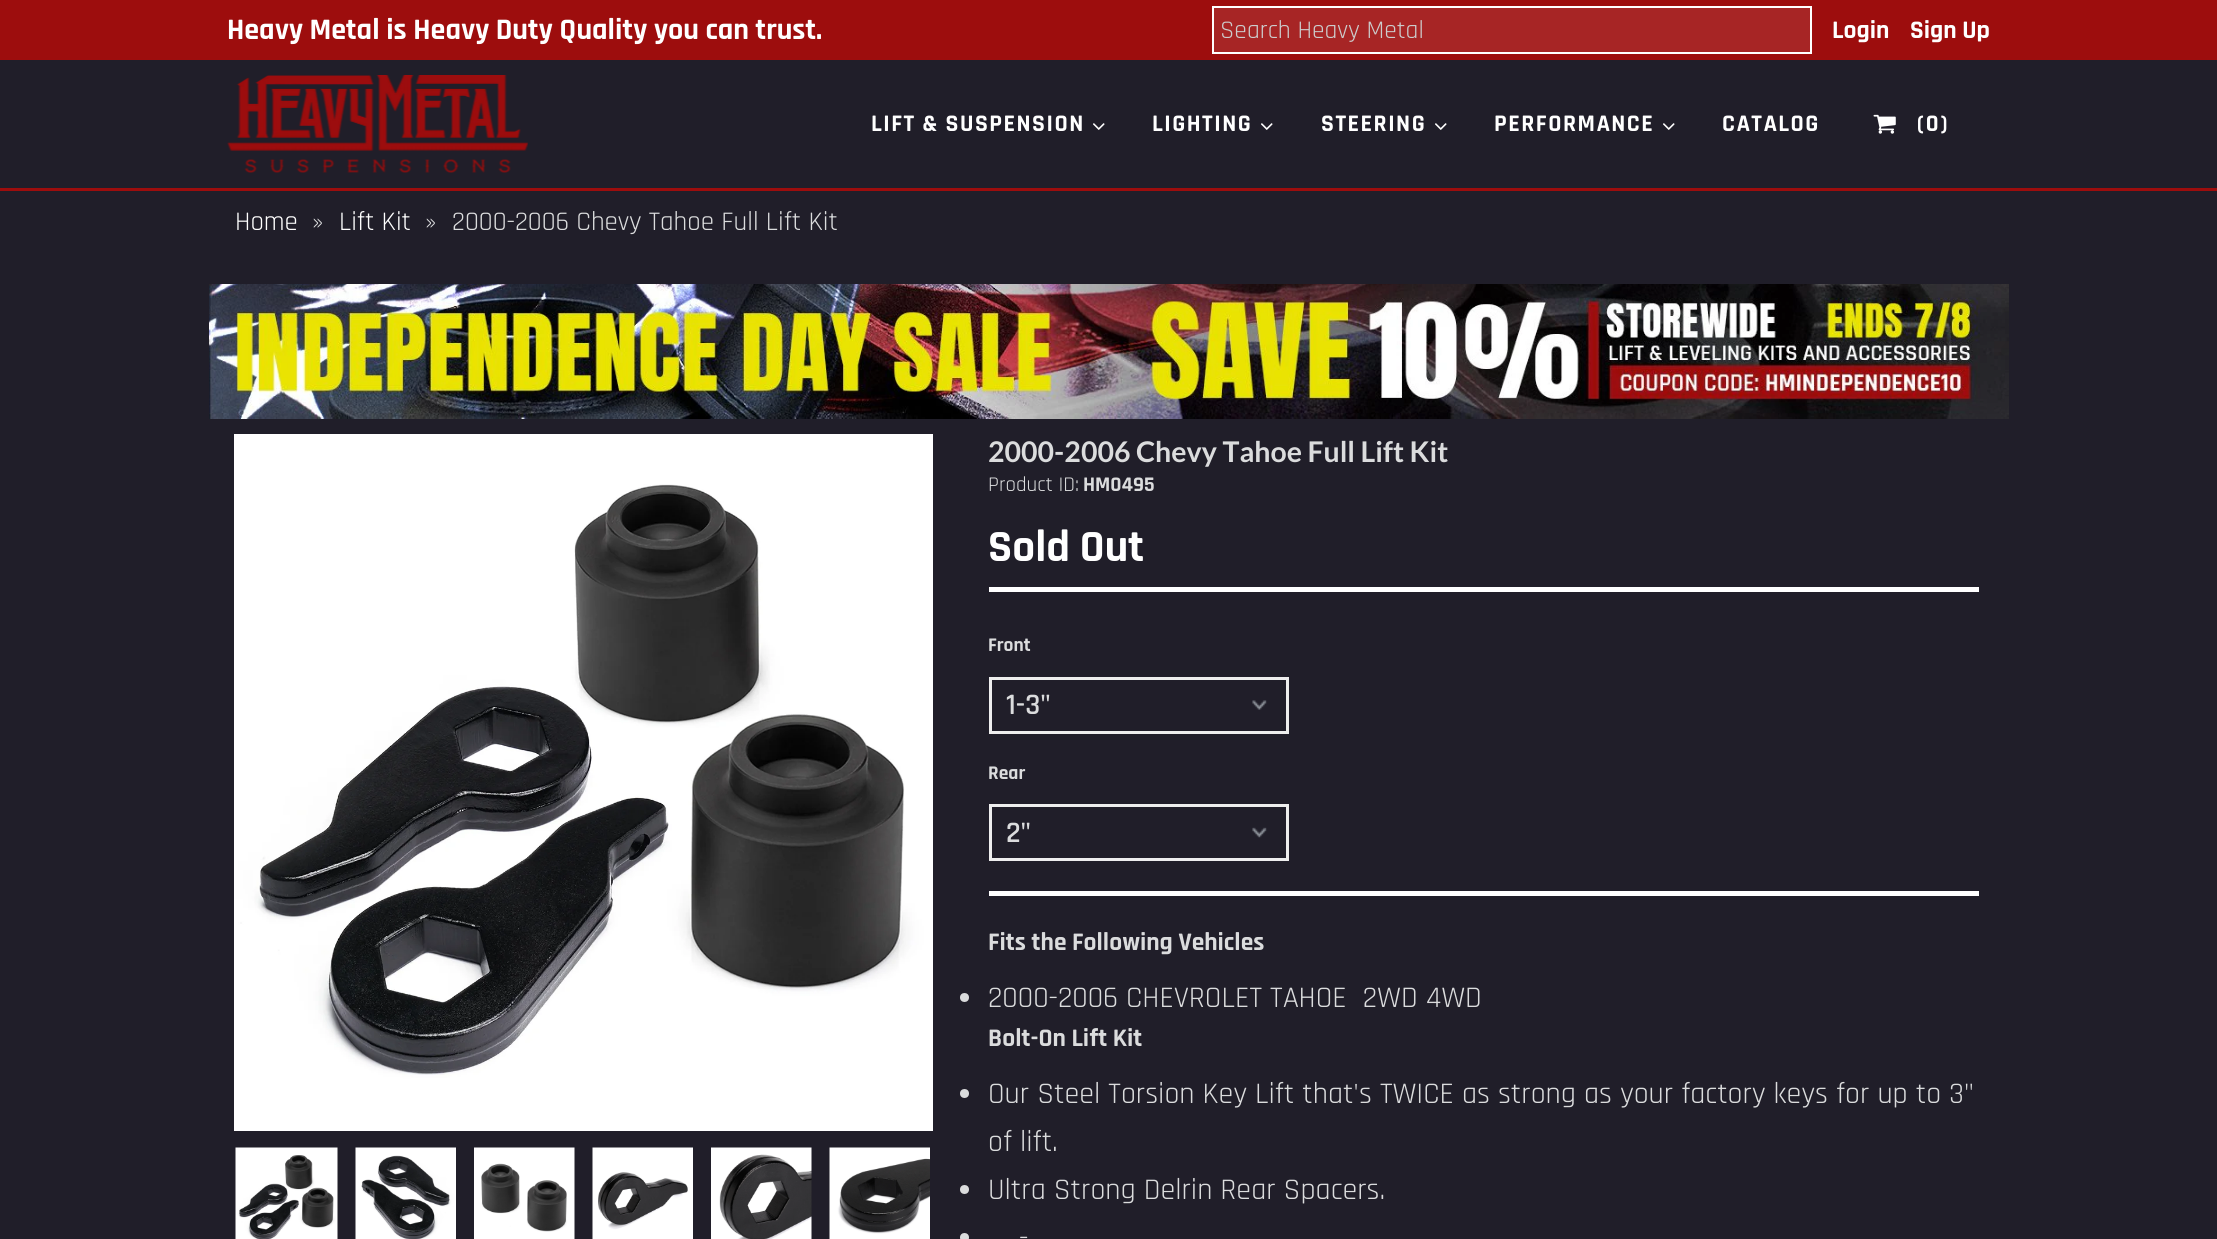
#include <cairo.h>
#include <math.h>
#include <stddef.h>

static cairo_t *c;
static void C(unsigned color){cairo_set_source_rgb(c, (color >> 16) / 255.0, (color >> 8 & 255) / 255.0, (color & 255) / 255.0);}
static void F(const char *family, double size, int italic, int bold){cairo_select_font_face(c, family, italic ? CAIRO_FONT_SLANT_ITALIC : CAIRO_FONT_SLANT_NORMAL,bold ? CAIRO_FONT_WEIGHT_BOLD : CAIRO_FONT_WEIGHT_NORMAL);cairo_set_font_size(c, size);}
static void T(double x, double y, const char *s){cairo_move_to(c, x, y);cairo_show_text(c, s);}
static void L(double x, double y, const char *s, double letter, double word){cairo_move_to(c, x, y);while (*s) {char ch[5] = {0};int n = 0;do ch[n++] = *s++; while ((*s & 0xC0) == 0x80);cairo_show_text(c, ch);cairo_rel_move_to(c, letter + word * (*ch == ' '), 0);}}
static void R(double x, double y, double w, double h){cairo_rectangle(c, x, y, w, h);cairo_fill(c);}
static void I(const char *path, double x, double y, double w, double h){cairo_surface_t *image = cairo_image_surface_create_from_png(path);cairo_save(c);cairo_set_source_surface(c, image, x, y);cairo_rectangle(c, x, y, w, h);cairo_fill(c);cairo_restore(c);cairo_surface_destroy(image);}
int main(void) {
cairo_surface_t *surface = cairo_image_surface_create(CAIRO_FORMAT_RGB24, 2217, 1239);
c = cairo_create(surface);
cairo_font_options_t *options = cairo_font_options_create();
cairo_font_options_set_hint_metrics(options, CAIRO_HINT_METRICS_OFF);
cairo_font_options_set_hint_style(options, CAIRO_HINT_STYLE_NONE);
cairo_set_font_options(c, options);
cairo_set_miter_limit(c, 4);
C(0x201e29);
cairo_paint(c);
C(0x9d0d0d);
R(0,0,2217,60);
F("Rajdhani",30,0,1);
C(0xffffff);
T(227,39,"Heavy Metal is Heavy Duty Quality you can trust.");
C(0xa72525);
cairo_rectangle(c,1213,7,598,46);
cairo_fill_preserve(c);
C(0xffffff);
cairo_stroke(c);
F("Rajdhani",25.5,0,0);
C(0xcccccc);
T(1220,38,"Search Heavy Metal");
F("Rajdhani",25.5,0,1);
C(0xffffff);
T(1832,38,"Login");
T(1910,38,"Sign Up");
C(0x9d0d0d);
R(0,188,2217,3);
I("1.png",227,75,301,98);
F("Rajdhani",24,0,1);
C(0xffffff);
L(871,131,"LIFT & SUSPENSION",1.5,0);
I("2.png",1093,123,12,7);
L(1152,131,"LIGHTING",1.5,0);
I("2.png",1261,123,12,7);
L(1321,131,"STEERING",1.5,0);
I("2.png",1435,123,12,7);
L(1494,131,"PERFORMANCE",1.5,0);
I("2.png",1663,123,12,7);
L(1722,131,"CATALOG",1.5,0);
I("3.png",1873,114,23,20);
L(1917,131,"(0)",1.5,0);
F("Rajdhani",27,0,0);
T(235,230,"Home");
C(0xdbdcdd);
T(312,230,"»");
C(0xffffff);
T(339,230,"Lift Kit");
C(0xdbdcdd);
T(425,230,"»");
T(452,230,"2000-2006 Chevy Tahoe Full Lift Kit");
I("4.png",209,284,1800,135);
I("5.png",234,434,699,697);
I("6.png",235,1147,103,92);
I("7.png",355,1147,101,92);
I("8.png",474,1147,101,92);
I("9.png",592,1147,101,92);
I("10.png",711,1147,101,92);
I("11.png",829,1147,101,92);
F("Lato",28.5,0,1);
T(988,462,"2000-2006 Chevy Tahoe Full Lift Kit");
F("Rajdhani",21,0,0);
T(988,491,"Product ID:");
F("Rajdhani",21,0,1);
T(1083,491,"HM0495");
F("Rajdhani",45,0,1);
C(0xffffff);
T(988,561,"Sold Out");
R(989,587,990,5);
R(989,891,990,5);
F("Rajdhani",19.5,0,1);
C(0xdbdcdd);
T(988,651,"Front");
I("12.png",1252,700,15,10);
cairo_rectangle(c,990.5,678.5,297,54);
C(0xeeeeee);
cairo_set_line_width(c,3);
cairo_stroke(c);
F("Rajdhani SemiBold",30,0,0);
C(0xdbdcdd);
T(1006,714,"1-3\"");
F("Rajdhani",19.5,0,1);
T(988,779,"Rear");
I("13.png",1252,827,15,11);
cairo_rectangle(c,990.5,805.5,297,54);
C(0xeeeeee);
cairo_stroke(c);
F("Rajdhani SemiBold",30,0,0);
C(0xdbdcdd);
T(1006,842,"2\"");
F("Rajdhani",25.5,0,1);
T(988,950,"Fits the Following Vehicles");
cairo_new_path(c);
cairo_arc(c,964.5,997.5,4.5,0,2 * M_PI);
cairo_fill(c);
F("Rajdhani",30,0,0);
T(988,1007,"2000-2006 CHEVROLET TAHOE  2WD 4WD");
F("Rajdhani",25.5,0,1);
T(988,1046,"Bolt-On Lift Kit");
cairo_new_path(c);
cairo_arc(c,964.5,1093.5,4.5,0,2 * M_PI);
cairo_fill(c);
F("Rajdhani",30,0,0);
T(988,1103,"Our Steel Torsion Key Lift that's TWICE as strong as your factory keys for up to 3\"");
T(988,1151,"of lift.");
cairo_new_path(c);
cairo_arc(c,964.5,1189.5,4.5,0,2 * M_PI);
cairo_fill(c);
T(988,1199,"Ultra Strong Delrin Rear Spacers.");
cairo_new_path(c);
cairo_arc(c,964.5,1237.5,4.5,0,2 * M_PI);
cairo_fill(c);
T(1019,1247,"-");
cairo_surface_write_to_png(surface, "o.png");
cairo_font_options_destroy(options);
cairo_destroy(c);
cairo_surface_destroy(surface);
return 0;
}
